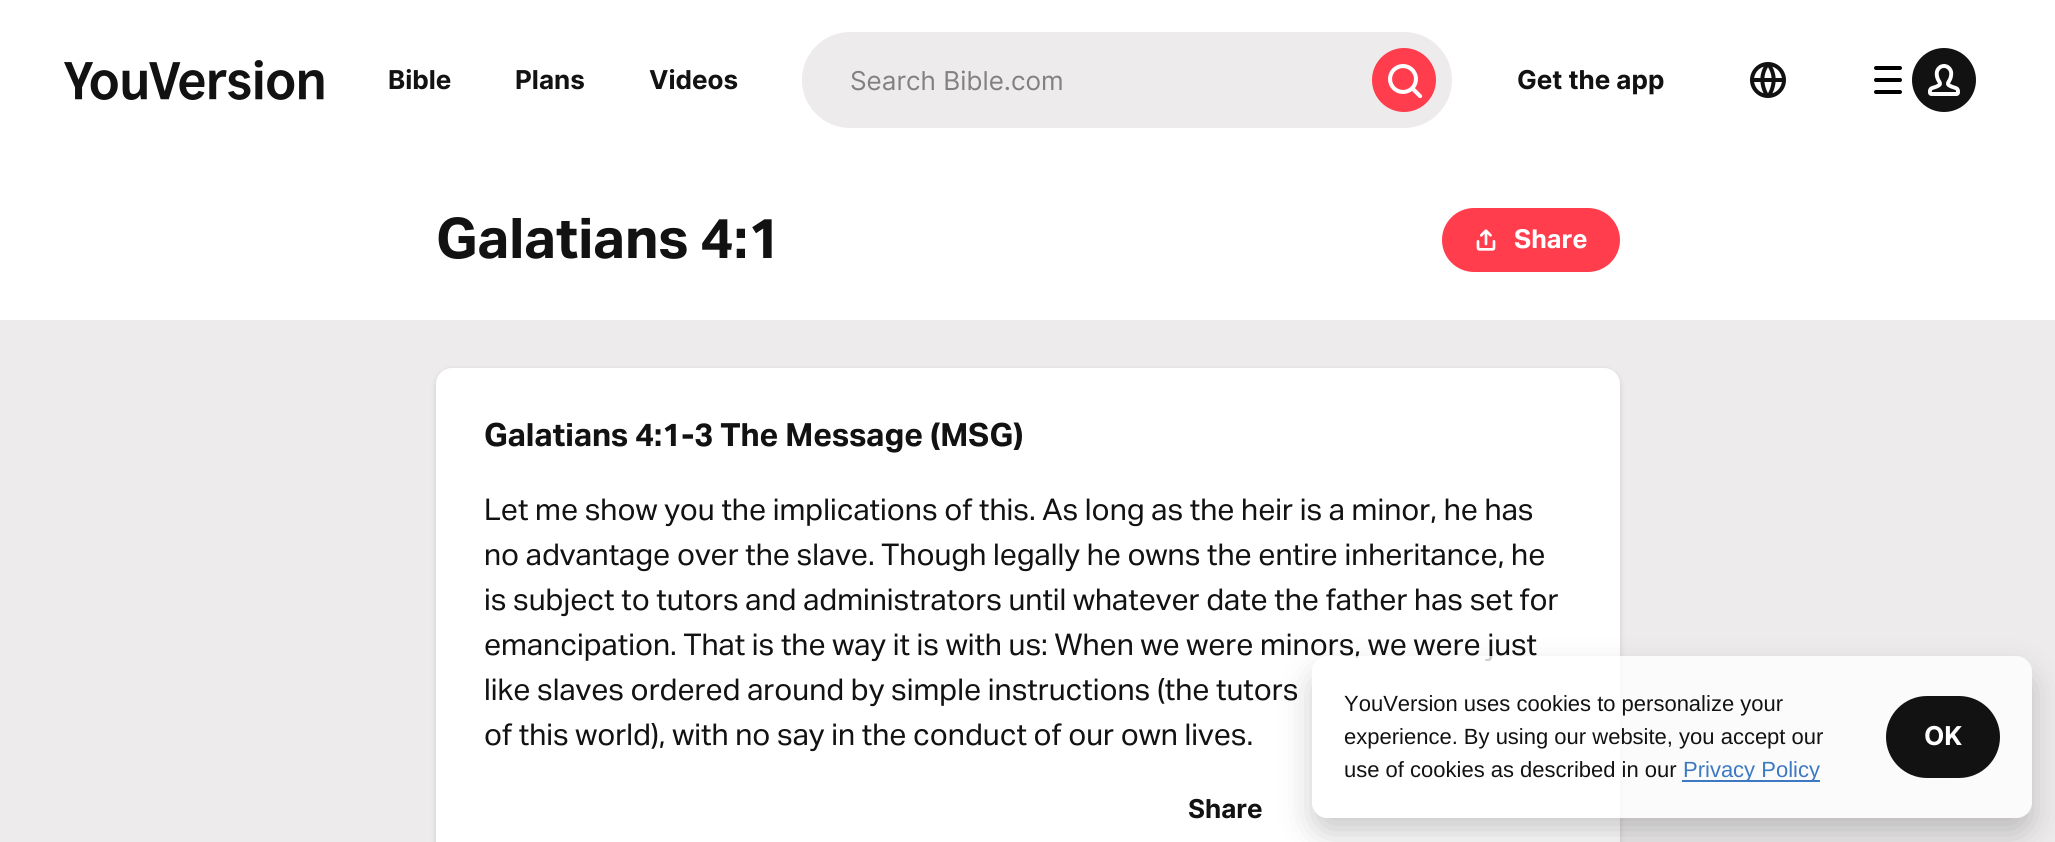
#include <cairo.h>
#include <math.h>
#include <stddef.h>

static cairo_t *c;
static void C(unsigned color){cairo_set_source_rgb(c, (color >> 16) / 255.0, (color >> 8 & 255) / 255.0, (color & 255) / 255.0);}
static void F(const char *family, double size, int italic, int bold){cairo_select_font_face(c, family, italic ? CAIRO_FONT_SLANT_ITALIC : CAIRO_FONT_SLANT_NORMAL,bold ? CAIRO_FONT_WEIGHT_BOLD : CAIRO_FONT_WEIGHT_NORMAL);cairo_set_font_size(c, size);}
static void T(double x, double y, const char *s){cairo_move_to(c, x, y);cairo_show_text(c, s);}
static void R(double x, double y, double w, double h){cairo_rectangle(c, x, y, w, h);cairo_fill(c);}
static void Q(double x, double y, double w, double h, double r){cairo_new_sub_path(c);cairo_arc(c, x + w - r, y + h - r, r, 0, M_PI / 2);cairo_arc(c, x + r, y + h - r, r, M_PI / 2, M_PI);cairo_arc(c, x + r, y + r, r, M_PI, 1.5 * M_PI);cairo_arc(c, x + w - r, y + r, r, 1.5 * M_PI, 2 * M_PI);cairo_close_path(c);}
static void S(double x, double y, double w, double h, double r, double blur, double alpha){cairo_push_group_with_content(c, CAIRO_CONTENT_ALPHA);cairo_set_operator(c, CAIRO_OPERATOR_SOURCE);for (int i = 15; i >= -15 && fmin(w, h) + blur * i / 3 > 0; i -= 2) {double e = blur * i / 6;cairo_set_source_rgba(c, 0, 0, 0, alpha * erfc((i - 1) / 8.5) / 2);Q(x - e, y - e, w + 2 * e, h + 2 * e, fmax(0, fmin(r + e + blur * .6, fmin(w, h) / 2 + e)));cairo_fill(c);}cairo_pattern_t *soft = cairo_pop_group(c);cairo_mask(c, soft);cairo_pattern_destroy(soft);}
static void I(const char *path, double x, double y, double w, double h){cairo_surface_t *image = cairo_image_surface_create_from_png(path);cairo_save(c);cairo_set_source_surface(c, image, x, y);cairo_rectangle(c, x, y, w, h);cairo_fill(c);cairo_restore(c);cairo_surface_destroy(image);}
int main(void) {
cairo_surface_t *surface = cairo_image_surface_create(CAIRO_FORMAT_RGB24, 2055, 842);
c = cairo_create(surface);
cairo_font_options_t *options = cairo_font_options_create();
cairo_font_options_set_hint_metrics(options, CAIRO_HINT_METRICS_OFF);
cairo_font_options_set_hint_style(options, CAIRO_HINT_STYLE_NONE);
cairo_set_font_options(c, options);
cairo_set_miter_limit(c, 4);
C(0xffffff);
cairo_paint(c);
I("1.png",64,60,260,40);
F("Inter",26,0,1);
C(0x121212);
T(388,89,"Bible");
T(515,89,"Plans");
T(649,89,"Videos");
C(0xedebeb);
Q(802,32,650,96,48);
cairo_fill(c);
Q(802,48,554,64,32);
cairo_fill(c);
F("Inter",26,0,0);
C(0x828080);
T(850,90,"Search Bible.com");
C(0xff3d4d);
cairo_new_path(c);
cairo_arc(c,1404,80,32,0,2 * M_PI);
cairo_fill(c);
I("2.png",1388,64,35,35);
F("Inter",26,0,1);
C(0x121212);
T(1517,89,"Get the app");
I("3.png",1750,62,36,36);
I("4.png",1874,66,28,28);
cairo_arc(c,1944,80,32,0,2 * M_PI);
cairo_fill(c);
I("5.png",1928,64,32,32);
C(0xedebeb);
R(0,320,2055,522);
F("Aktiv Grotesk",56,0,1);
C(0x121212);
T(436,258,"Galatians 4:1");
C(0xff3d4d);
Q(1442,208,178,64,32);
cairo_fill(c);
I("6.png",1476,229,20,22);
F("Aktiv Grotesk",26,0,1);
C(0xffffff);
T(1514,248,"Share");
C(0x121212);
S(436,370,1184,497,16,3,.15);
C(0xffffff);
Q(436,368,1184,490,16);
cairo_fill(c);
F("Aktiv Grotesk",32,0,1);
C(0x121212);
T(484,446,"Galatians 4:1-3 The Message (MSG)");
F("Aktiv Grotesk",30,0,0);
T(484,520,"Let me show you the implications of this. As long as the heir is a minor, he has");
T(484,565,"no advantage over the slave. Though legally he owns the entire inheritance, he");
T(484,610,"is subject to tutors and administrators until whatever date the father has set for");
T(484,655,"emancipation. That is the way it is with us: When we were minors, we were just");
T(484,700,"like slaves ordered around by simple instructions (the tutors");
T(484,745,"of this world), with no say in the conduct of our own lives.");
F("Inter",26,0,1);
T(1188,818,"Share");
cairo_save(c);
cairo_set_fill_rule(c,CAIRO_FILL_RULE_EVEN_ODD);
cairo_new_path(c);
cairo_move_to(c,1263,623);
cairo_line_to(c,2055,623);
cairo_line_to(c,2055,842);
cairo_line_to(c,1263,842);
cairo_close_path(c);
cairo_move_to(c,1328,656);
cairo_line_to(c,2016,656);
cairo_curve_to(c,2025,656,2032,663,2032,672);
cairo_line_to(c,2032,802);
cairo_curve_to(c,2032,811,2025,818,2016,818);
cairo_line_to(c,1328,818);
cairo_curve_to(c,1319,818,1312,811,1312,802);
cairo_line_to(c,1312,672);
cairo_curve_to(c,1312,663,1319,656,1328,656);
cairo_close_path(c);
cairo_clip(c);
C(0x000000);
S(1312,672,720,162,16,16,.2);
cairo_restore(c);
cairo_set_source_rgba(c,1,1,1,0.8);
Q(1312,656,720,162,16);
cairo_fill(c);
F("Liberation Sans",22,0,0);
C(0x121212);
T(1344,711,"YouVersion uses cookies to personalize your");
T(1344,744,"experience. By using our website, you accept our");
T(1344,777,"use of cookies as described in our");
C(0x3d79c2);
R(1682,780,138,2);
T(1683,777,"Privacy Policy");
C(0x121212);
Q(1886,696,114,82,41);
cairo_fill(c);
F("Inter",26,0,1);
C(0xffffff);
T(1924,745,"OK");
cairo_surface_write_to_png(surface, "o.png");
cairo_font_options_destroy(options);
cairo_destroy(c);
cairo_surface_destroy(surface);
return 0;
}
